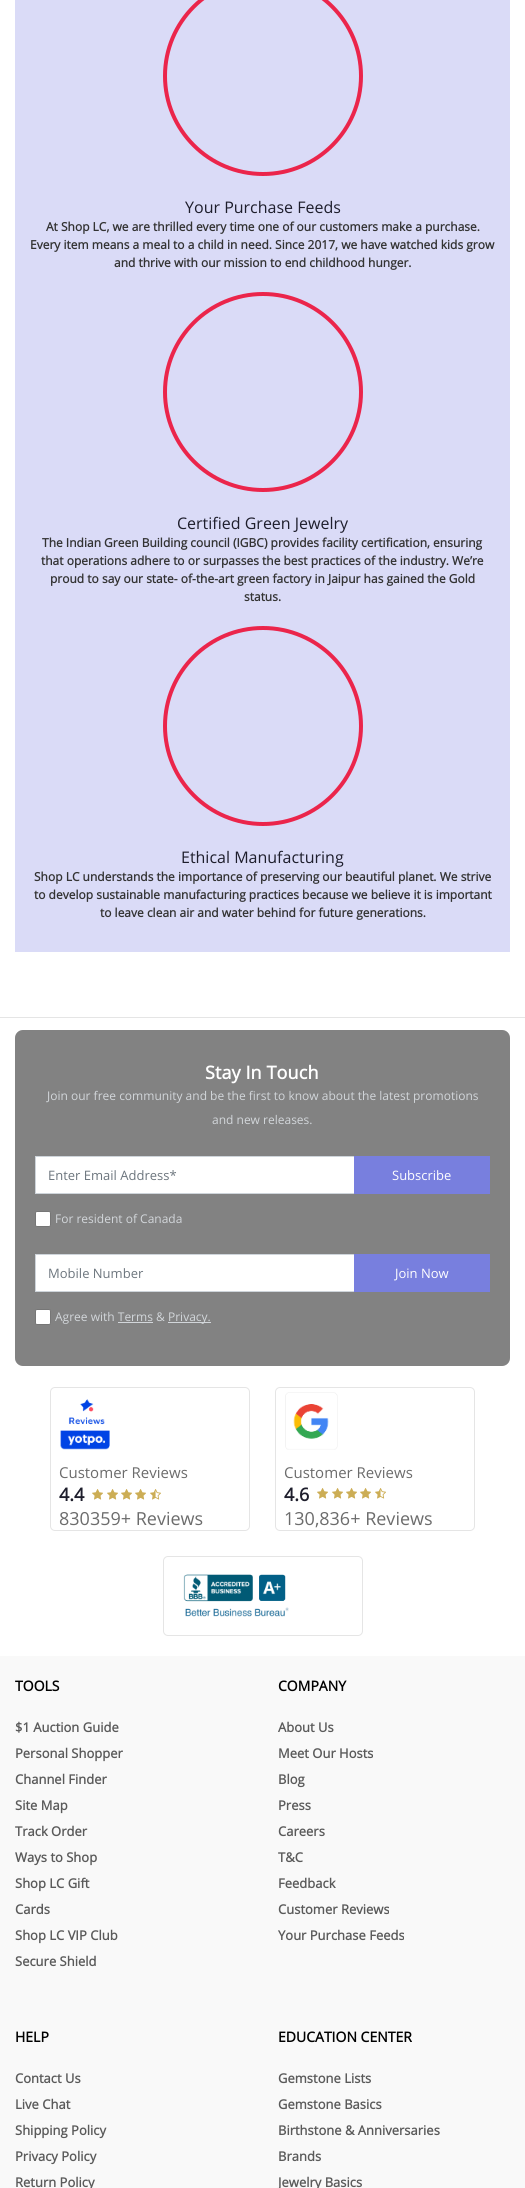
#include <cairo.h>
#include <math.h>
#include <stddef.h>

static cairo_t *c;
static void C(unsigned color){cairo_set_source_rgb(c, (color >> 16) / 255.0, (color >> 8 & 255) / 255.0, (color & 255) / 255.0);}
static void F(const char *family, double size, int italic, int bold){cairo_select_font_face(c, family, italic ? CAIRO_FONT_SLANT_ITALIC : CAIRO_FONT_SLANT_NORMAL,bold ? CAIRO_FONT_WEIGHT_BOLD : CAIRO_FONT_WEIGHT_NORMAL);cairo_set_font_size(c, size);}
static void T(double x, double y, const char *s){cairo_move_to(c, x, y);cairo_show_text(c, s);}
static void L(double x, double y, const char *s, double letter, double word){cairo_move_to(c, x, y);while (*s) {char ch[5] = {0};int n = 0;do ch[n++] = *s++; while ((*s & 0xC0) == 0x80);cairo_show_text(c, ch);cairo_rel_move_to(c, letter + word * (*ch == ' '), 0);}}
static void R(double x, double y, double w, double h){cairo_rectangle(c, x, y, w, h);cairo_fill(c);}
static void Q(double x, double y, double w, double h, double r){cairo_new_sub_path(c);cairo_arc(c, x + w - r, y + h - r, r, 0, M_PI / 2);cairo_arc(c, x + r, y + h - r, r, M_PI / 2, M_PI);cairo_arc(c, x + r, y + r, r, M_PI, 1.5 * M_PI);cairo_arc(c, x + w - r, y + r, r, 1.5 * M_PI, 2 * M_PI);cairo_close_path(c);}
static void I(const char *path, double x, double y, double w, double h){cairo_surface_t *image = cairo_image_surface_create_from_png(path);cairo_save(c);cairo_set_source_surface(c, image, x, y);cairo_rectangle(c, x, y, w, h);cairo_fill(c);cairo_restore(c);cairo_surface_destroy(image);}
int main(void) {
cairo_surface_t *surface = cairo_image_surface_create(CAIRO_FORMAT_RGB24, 525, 2188);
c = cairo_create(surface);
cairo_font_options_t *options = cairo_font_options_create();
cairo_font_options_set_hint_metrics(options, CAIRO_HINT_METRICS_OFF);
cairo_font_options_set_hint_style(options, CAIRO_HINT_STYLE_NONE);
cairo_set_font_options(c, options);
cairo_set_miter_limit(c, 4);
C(0xffffff);
cairo_paint(c);
C(0xdadbf7);
R(15,0,495,952);
cairo_arc(c,263,76,98,0,2 * M_PI);
C(0xeb254b);
cairo_set_line_width(c,4);
cairo_stroke(c);
F("Open Sans",16,0,0);
C(0x1e1e2c);
T(185,213,"Your Purchase Feeds");
F("Open Sans",12,0,1);
C(0x333333);
T(46,231,"At Shop LC, we are thrilled every time one of our customers make a purchase.");
T(30,249,"Every item means a meal to a child in need. Since 2017, we have watched kids grow");
T(114,267,"and thrive with our mission to end childhood hunger.");
cairo_new_path(c);
cairo_arc(c,263,392,98,0,2 * M_PI);
C(0xeb254b);
cairo_stroke(c);
F("Open Sans",16,0,0);
C(0x1e1e2c);
T(177,529,"Certified Green Jewelry");
F("Open Sans",12,0,1);
C(0x333333);
T(42,547,"The Indian Green Building council (IGBC) provides facility certification, ensuring");
T(41,565,"that operations adhere to or surpasses the best practices of the industry. We’re");
T(50,583,"proud to say our state- of-the-art green factory in Jaipur has gained the Gold");
T(244,601,"status.");
cairo_new_path(c);
cairo_arc(c,263,726,98,0,2 * M_PI);
C(0xeb254b);
cairo_stroke(c);
F("Open Sans",16,0,0);
C(0x1e1e2c);
T(181,863,"Ethical Manufacturing");
F("Open Sans",12,0,1);
C(0x333333);
T(34,881,"Shop LC understands the importance of preserving our beautiful planet. We strive");
T(34,899,"to develop sustainable manufacturing practices because we believe it is important");
T(100,917,"to leave clean air and water behind for future generations.");
C(0xe5e5e5);
R(0,1017,525,1);
C(0xcccccc);
Q(15,1030,495,336,8);
cairo_fill(c);
cairo_set_source_rgba(c,0,0,0,0.2);
Q(15,1030,495,336,8);
cairo_fill(c);
Q(15,1030,495,336,8);
cairo_fill(c);
F("Open Sans",18,0,1);
C(0xffffff);
L(205,1079,"Stay In Touch",.1,0);
F("Open Sans",12,0,0);
C(0xd2d6da);
T(47,1100,"Join our free community and be the first to know about the latest promotions");
T(212,1124,"and new releases.");
C(0xffffff);
cairo_rectangle(c,35.5,1156.5,319,37);
cairo_fill_preserve(c);
C(0xced4da);
cairo_set_line_width(c,1);
cairo_stroke(c);
F("Open Sans",13,0,0);
C(0x6c757d);
T(48,1180,"Enter Email Address*");
C(0x787fde);
R(354,1156,136,38);
C(0xffffff);
T(392,1180,"Subscribe");
Q(35.5,1211.5,15,15,1.5);
cairo_fill_preserve(c);
C(0x767676);
cairo_stroke(c);
F("Open Sans",12,0,0);
C(0xd2d6da);
T(55,1223,"For resident of Canada");
C(0xffffff);
cairo_rectangle(c,35.5,1254.5,319,37);
cairo_fill_preserve(c);
C(0xced4da);
cairo_stroke(c);
F("Open Sans",13,0,0);
C(0x6c757d);
T(48,1278,"Mobile Number");
C(0x787fde);
R(354,1254,136,38);
C(0xffffff);
T(395,1278,"Join Now");
Q(35.5,1309.5,15,15,1.5);
cairo_fill_preserve(c);
C(0x767676);
cairo_stroke(c);
F("Open Sans",12,0,0);
C(0xd2d6da);
T(55,1321,"Agree with Terms &");
R(118,1322,35,1);
R(168,1322,43,1);
T(168,1321,"Privacy.");
Q(50.5,1387.5,199,143,4.5);
C(0xe5e5e5);
cairo_stroke(c);
I("1.png",60,1399,50,51);
F("Open Sans",15,0,0);
C(0x6c6c6c);
T(59,1478,"Customer Reviews");
F("Open Sans",18,0,1);
C(0x1e1e2c);
T(59,1501,"4.4");
I("2.png",92,1489,11,11);
I("2.png",107,1489,11,11);
I("2.png",121,1489,11,11);
I("2.png",135,1489,11,11);
I("3.png",150,1489,11,11);
F("Open Sans",18,0,0);
C(0x6c6c6c);
T(59,1525,"830359+ Reviews");
Q(275.5,1387.5,199,143,4.5);
C(0xe5e5e5);
cairo_stroke(c);
I("4.png",285,1392,53,58);
F("Open Sans",15,0,0);
C(0x6c6c6c);
T(284,1478,"Customer Reviews");
F("Open Sans",18,0,1);
C(0x1e1e2c);
T(284,1501,"4.6");
I("2.png",317,1488,11,11);
I("2.png",332,1488,11,11);
I("2.png",346,1488,11,11);
I("2.png",360,1488,11,11);
I("3.png",375,1488,11,11);
F("Open Sans",18,0,0);
C(0x6c6c6c);
T(284,1525,"130,836+ Reviews");
Q(163.5,1556.5,199,79,4.5);
C(0xe5e5e5);
cairo_stroke(c);
I("5.png",183,1574,106,43);
C(0xf9f9f9);
R(0,1656,525,532);
F("Open Sans",14,0,1);
C(0x000000);
T(15,1691,"TOOLS");
F("Open Sans",13,0,1);
C(0x5a5a5a);
T(15,1732,"$1 Auction Guide");
T(15,1758,"Personal Shopper");
T(15,1784,"Channel Finder");
T(15,1810,"Site Map");
T(15,1836,"Track Order");
T(15,1862,"Ways to Shop");
T(15,1888,"Shop LC Gift");
T(15,1914,"Cards");
T(15,1940,"Shop LC VIP Club");
T(15,1966,"Secure Shield");
F("Open Sans",14,0,1);
C(0x000000);
T(278,1691,"COMPANY");
F("Open Sans",13,0,1);
C(0x5a5a5a);
T(278,1732,"About Us");
T(278,1758,"Meet Our Hosts");
T(278,1784,"Blog");
T(278,1810,"Press");
T(278,1836,"Careers");
T(278,1862,"T&C");
T(278,1888,"Feedback");
T(278,1914,"Customer Reviews");
T(278,1940,"Your Purchase Feeds");
F("Open Sans",14,0,1);
C(0x000000);
T(15,2042,"HELP");
F("Open Sans",13,0,1);
C(0x5a5a5a);
T(15,2083,"Contact Us");
T(15,2109,"Live Chat");
T(15,2135,"Shipping Policy");
T(15,2161,"Privacy Policy");
T(15,2187,"Return Policy");
F("Open Sans",14,0,1);
C(0x000000);
T(278,2042,"EDUCATION CENTER");
F("Open Sans",13,0,1);
C(0x5a5a5a);
T(278,2083,"Gemstone Lists");
T(278,2109,"Gemstone Basics");
T(278,2135,"Birthstone & Anniversaries");
T(278,2161,"Brands");
T(278,2187,"Jewelry Basics");
cairo_surface_write_to_png(surface, "o.png");
cairo_font_options_destroy(options);
cairo_destroy(c);
cairo_surface_destroy(surface);
return 0;
}
